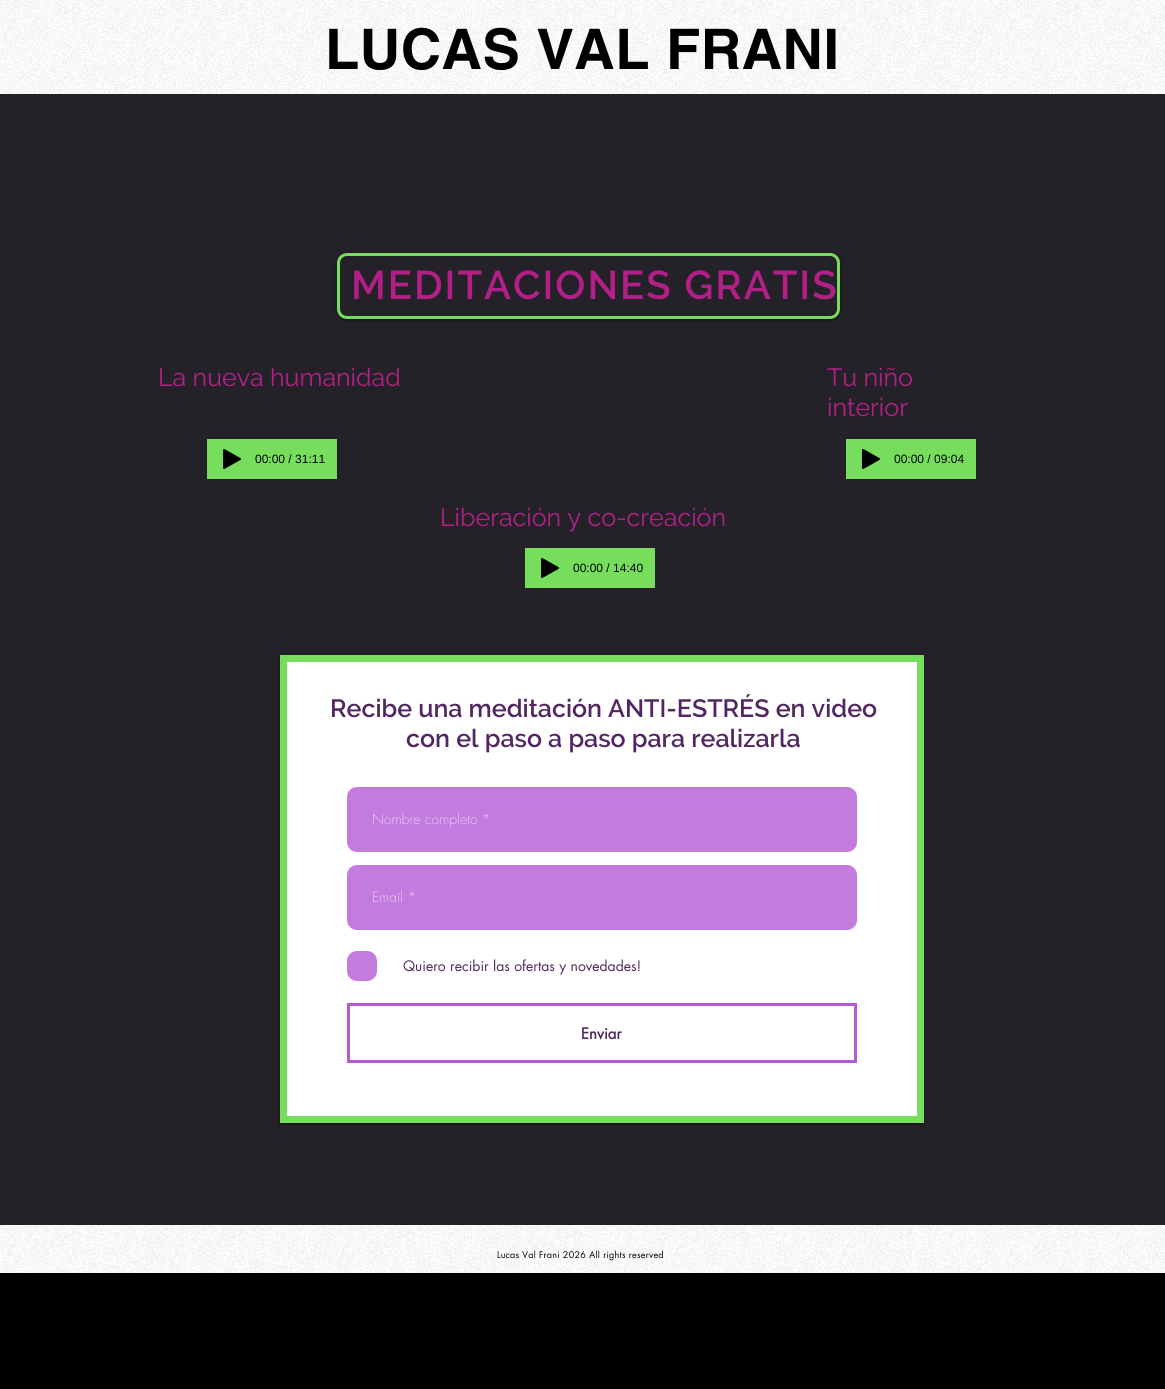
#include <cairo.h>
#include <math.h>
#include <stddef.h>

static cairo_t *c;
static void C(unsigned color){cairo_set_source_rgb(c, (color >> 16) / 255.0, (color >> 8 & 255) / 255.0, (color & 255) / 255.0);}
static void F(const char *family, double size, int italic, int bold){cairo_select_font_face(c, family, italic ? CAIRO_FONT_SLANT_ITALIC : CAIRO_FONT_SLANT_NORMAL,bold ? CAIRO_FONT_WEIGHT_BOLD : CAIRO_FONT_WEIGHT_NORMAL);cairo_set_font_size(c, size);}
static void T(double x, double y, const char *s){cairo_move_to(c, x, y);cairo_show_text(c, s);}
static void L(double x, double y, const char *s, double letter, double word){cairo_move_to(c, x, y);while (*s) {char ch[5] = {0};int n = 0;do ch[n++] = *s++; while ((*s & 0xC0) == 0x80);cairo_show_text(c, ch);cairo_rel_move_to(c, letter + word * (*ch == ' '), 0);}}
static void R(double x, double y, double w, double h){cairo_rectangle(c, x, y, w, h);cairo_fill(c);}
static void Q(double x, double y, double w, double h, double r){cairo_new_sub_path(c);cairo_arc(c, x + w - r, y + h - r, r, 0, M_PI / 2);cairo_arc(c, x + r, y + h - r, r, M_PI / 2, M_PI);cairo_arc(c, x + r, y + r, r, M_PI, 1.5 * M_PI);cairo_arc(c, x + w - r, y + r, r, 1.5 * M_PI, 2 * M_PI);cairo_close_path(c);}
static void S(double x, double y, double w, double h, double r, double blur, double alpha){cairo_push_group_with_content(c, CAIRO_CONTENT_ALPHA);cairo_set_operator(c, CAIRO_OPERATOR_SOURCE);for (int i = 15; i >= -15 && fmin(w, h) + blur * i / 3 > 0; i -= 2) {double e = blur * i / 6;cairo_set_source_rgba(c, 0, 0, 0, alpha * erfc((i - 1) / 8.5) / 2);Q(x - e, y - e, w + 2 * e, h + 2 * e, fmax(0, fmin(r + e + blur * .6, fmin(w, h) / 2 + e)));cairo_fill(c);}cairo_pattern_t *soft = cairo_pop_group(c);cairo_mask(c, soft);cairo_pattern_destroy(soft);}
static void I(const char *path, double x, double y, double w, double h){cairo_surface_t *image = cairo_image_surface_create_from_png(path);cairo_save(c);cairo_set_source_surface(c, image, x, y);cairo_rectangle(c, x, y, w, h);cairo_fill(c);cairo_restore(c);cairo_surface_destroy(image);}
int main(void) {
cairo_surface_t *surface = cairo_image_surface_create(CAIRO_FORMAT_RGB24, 1165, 1389);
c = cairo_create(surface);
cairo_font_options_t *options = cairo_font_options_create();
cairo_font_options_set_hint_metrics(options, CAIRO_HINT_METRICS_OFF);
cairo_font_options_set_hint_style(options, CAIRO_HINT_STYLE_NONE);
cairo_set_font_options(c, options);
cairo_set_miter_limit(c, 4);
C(0x000000);
cairo_paint(c);
C(0xffffff);
R(0,0,1165,94);
I("1.png",0,0,1165,94);
F("helvetica",56,0,1);
C(0x000000);
L(325,69,"LUCAS VAL FRANI",.5,0);
C(0x252128);
R(0,94,1165,1131);
C(0x000000);
S(337,254,503,66,10,2,.6);
C(0x252128);
Q(338.5,254.5,500,63,8.5);
cairo_fill_preserve(c);
C(0x77de5d);
cairo_set_line_width(c,3);
cairo_stroke(c);
F("Raleway SemiBold",40,0,0);
C(0xb22087);
L(351,299,"MEDITACIONES GRATIS",2,0);
F("Raleway",25,0,0);
T(158,386,"La nueva humanidad");
T(827,386,"Tu niño");
T(827,416,"interior");
C(0x77de5d);
R(207,439,130,40);
I("2.png",223,449,18,20);
F("Liberation Sans",12,0,0);
C(0x000000);
T(255,463,"00:00 / 31:11");
C(0x77de5d);
R(846,439,130,40);
I("2.png",862,449,18,20);
C(0x000000);
T(894,463,"00:00 / 09:04");
F("Raleway",25,0,0);
C(0xb22087);
T(440,526,"Liberación y co-creación");
C(0x77de5d);
R(525,548,130,40);
I("2.png",541,558,18,20);
F("Liberation Sans",12,0,0);
C(0x000000);
T(573,572,"00:00 / 14:40");
C(0x000000);
S(280,656,644,468,0,2,.6);
C(0xffffff);
cairo_rectangle(c,283.5,658.5,637,461);
cairo_fill_preserve(c);
C(0x77de5d);
cairo_set_line_width(c,7);
cairo_stroke(c);
F("Raleway SemiBold",25,0,0);
C(0x522662);
T(330,717,"Recibe una meditación ANTI-ESTRÉS en video");
T(406,747,"con el paso a paso para realizarla");
C(0xc37bdd);
Q(347,787,510,65,10);
cairo_fill(c);
F("futura Light",14,0,0);
C(0xe7caf2);
T(372,824,"Nombre completo *");
C(0xc37bdd);
Q(347,865,510,65,10);
cairo_fill(c);
C(0xe7caf2);
T(372,902,"Email *");
C(0xc37bdd);
Q(347,951,30,30,10);
cairo_fill(c);
F("futura",14,0,0);
C(0x522662);
T(403,971,"Quiero recibir las ofertas y novedades!");
cairo_rectangle(c,348.5,1004.5,507,57);
C(0xb45ad4);
cairo_set_line_width(c,3);
cairo_stroke(c);
F("futura",15,0,1);
C(0x522662);
T(581,1039,"Enviar");
C(0xffffff);
R(0,1225,1165,48);
I("3.png",0,1225,1165,48);
F("futura",9,0,0);
C(0x000000);
L(497,1258,"Lucas Val Frani 2026 All rights reserved",.25,0);
cairo_surface_write_to_png(surface, "o.png");
cairo_font_options_destroy(options);
cairo_destroy(c);
cairo_surface_destroy(surface);
return 0;
}
